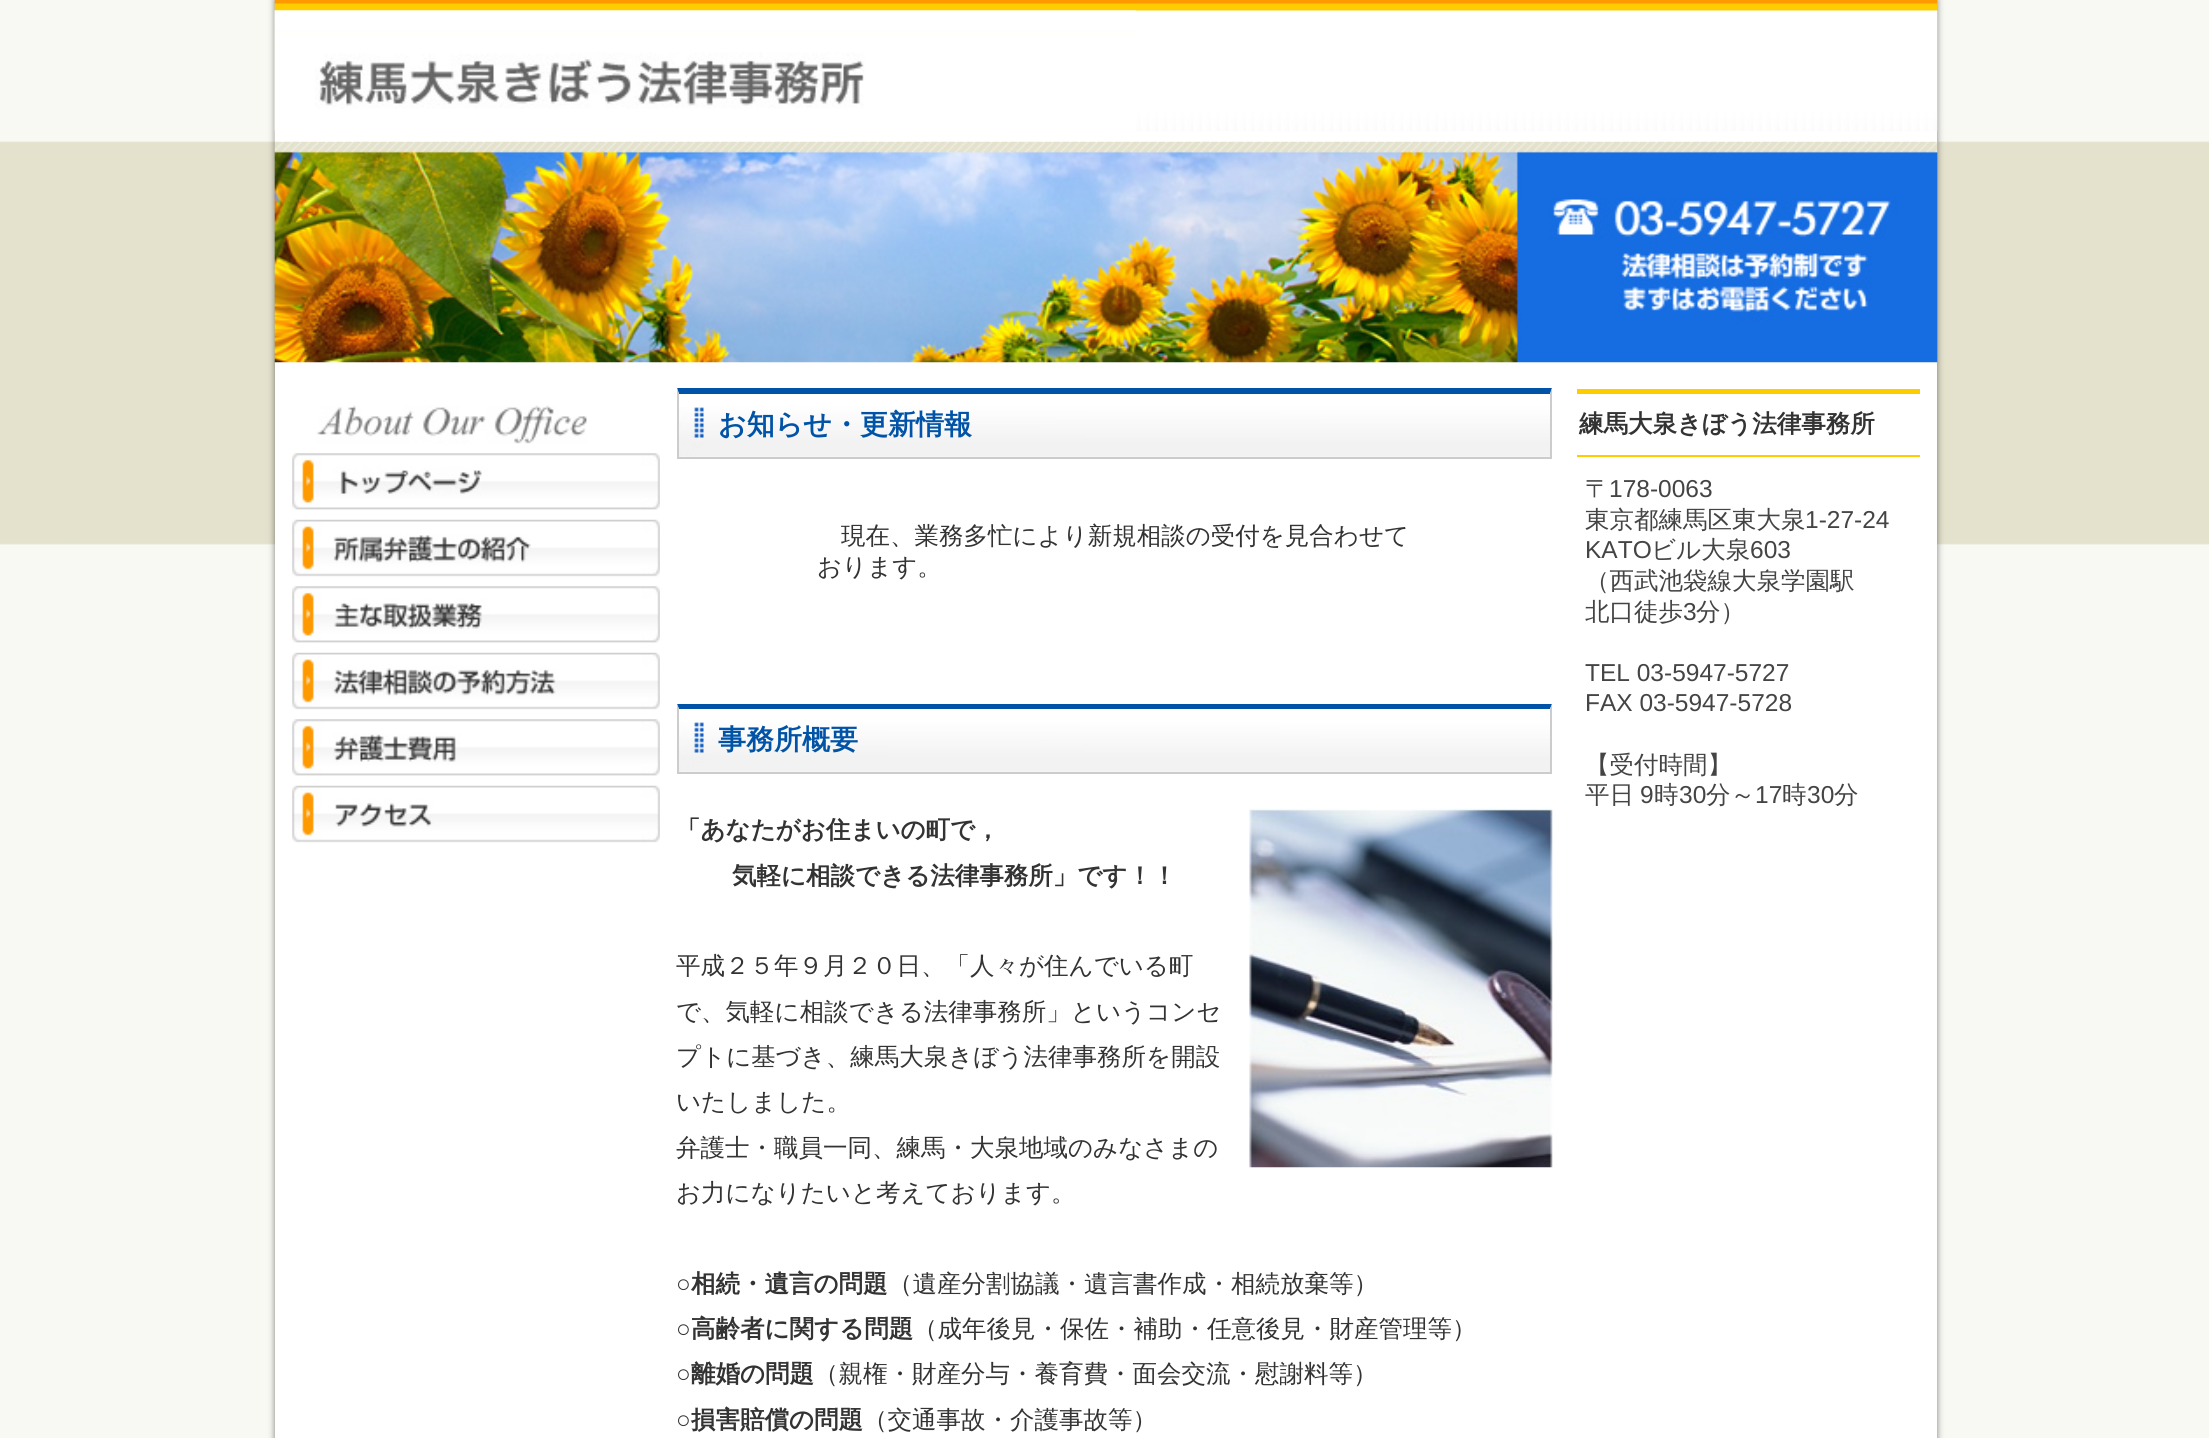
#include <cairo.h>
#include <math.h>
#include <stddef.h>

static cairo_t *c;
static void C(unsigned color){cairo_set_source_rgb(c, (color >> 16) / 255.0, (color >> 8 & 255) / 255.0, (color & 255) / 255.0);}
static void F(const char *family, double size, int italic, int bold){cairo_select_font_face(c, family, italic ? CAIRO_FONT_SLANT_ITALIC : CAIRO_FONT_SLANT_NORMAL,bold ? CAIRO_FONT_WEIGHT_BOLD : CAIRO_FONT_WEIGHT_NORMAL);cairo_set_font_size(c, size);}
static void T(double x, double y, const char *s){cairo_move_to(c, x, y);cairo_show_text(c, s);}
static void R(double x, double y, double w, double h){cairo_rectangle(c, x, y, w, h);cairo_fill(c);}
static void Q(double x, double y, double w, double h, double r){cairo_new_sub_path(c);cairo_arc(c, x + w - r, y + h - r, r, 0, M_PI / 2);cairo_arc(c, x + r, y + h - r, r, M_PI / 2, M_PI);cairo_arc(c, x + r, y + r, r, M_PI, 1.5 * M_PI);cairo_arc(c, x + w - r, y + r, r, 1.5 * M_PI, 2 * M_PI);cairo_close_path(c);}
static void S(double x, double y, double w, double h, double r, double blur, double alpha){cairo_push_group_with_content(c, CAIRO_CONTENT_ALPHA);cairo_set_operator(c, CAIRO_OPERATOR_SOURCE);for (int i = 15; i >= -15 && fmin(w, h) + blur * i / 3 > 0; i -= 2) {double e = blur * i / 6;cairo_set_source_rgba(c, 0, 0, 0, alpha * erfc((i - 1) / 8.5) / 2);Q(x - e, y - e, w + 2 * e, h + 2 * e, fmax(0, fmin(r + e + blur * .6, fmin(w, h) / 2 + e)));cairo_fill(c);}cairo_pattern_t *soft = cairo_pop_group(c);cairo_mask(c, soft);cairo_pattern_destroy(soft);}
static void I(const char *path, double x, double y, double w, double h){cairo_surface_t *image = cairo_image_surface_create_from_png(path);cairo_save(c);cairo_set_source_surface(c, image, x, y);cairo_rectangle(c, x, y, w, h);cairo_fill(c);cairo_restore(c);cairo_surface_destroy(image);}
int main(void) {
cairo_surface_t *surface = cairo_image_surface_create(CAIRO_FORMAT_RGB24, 2209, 1438);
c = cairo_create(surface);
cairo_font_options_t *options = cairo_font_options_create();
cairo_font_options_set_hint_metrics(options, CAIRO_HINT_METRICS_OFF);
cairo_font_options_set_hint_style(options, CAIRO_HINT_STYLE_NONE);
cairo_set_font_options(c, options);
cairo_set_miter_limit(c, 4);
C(0xf9f9f4);
cairo_paint(c);
I("1.png",0,141,2209,404);
C(0x000000);
S(275,0,1662,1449,0,3.5,.5);
C(0xffffff);
R(275,131,1662,1307);
I("2.png",274,0,1664,131);
I("3.png",274,10,862,132);
I("4.png",274,141,1664,222);
I("5.png",316,405,271,39);
I("6.png",292,453,368,57);
I("7.png",292,519,368,58);
I("8.png",292,586,368,57);
I("9.png",292,652,368,58);
I("10.png",292,719,368,57);
I("11.png",292,785,368,58);
I("12.png",679,407,871,50);
C(0x0053a6);
cairo_new_path(c);
cairo_move_to(c,677,388);
cairo_line_to(c,1552,388);
cairo_line_to(c,1550,394);
cairo_line_to(c,679,394);
cairo_close_path(c);
cairo_fill(c);
C(0xcccccc);
cairo_new_path(c);
cairo_move_to(c,1552,388);
cairo_line_to(c,1552,458);
cairo_line_to(c,1550,457);
cairo_line_to(c,1550,394);
cairo_close_path(c);
cairo_fill(c);
R(677,457,875,2);
cairo_new_path(c);
cairo_move_to(c,677,458);
cairo_line_to(c,677,388);
cairo_line_to(c,679,394);
cairo_line_to(c,679,457);
cairo_close_path(c);
cairo_fill(c);
F("WenQuanYi Zen Hei",28,0,1);
C(0x0053a6);
T(718,434,"お知らせ・更新情報");
F("WenQuanYi Zen Hei Medium",24.5,0,0);
C(0x333333);
T(841,544,"現在、業務多忙により新規相談の受付を見合わせて");
T(817,575,"おります。");
I("12.png",679,722,871,50);
C(0x0053a6);
cairo_new_path(c);
cairo_move_to(c,677,704);
cairo_line_to(c,1552,704);
cairo_line_to(c,1550,709);
cairo_line_to(c,679,709);
cairo_close_path(c);
cairo_fill(c);
C(0xcccccc);
cairo_new_path(c);
cairo_move_to(c,1552,704);
cairo_line_to(c,1552,774);
cairo_line_to(c,1550,772);
cairo_line_to(c,1550,709);
cairo_close_path(c);
cairo_fill(c);
R(677,772,875,2);
cairo_new_path(c);
cairo_move_to(c,677,774);
cairo_line_to(c,677,704);
cairo_line_to(c,679,709);
cairo_line_to(c,679,772);
cairo_close_path(c);
cairo_fill(c);
F("WenQuanYi Zen Hei",28,0,1);
C(0x0053a6);
T(718,749,"事務所概要");
F("WenQuanYi Zen Hei",24.5,0,1);
C(0x333333);
T(676,838,"「あなたがお住まいの町で，");
I("13.png",1249,808,304,360);
T(732,884,"気軽に相談できる法律事務所」です！！");
F("WenQuanYi Zen Hei Medium",24.5,0,0);
T(676,974,"平成２５年９月２０日、「人々が住んでいる町");
T(676,1020,"で、気軽に相談できる法律事務所」というコンセ");
T(676,1065,"プトに基づき、練馬大泉きぼう法律事務所を開設");
T(676,1110,"いたしました。");
T(676,1156,"弁護士・職員一同、練馬・大泉地域のみなさまの");
T(676,1201,"お力になりたいと考えております。");
F("Liberation Sans",24.5,0,1);
T(676,1292,"○");
F("WenQuanYi Zen Hei",24.5,0,1);
T(691,1292,"相続・遺言の問題");
F("WenQuanYi Zen Hei Medium",24.5,0,0);
T(888,1292,"（遺産分割協議・遺言書作成・相続放棄等）");
F("Liberation Sans",24.5,0,1);
T(676,1337,"○");
F("WenQuanYi Zen Hei",24.5,0,1);
T(691,1337,"高齢者に関する問題");
F("WenQuanYi Zen Hei Medium",24.5,0,0);
T(913,1337,"（成年後見・保佐・補助・任意後見・財産管理等）");
F("Liberation Sans",24.5,0,1);
T(676,1382,"○");
F("WenQuanYi Zen Hei",24.5,0,1);
T(691,1382,"離婚の問題");
F("WenQuanYi Zen Hei Medium",24.5,0,0);
T(814,1382,"（親権・財産分与・養育費・面会交流・慰謝料等）");
F("Liberation Sans",24.5,0,1);
T(676,1428,"○");
F("WenQuanYi Zen Hei",24.5,0,1);
T(691,1428,"損害賠償の問題");
F("WenQuanYi Zen Hei Medium",24.5,0,0);
T(863,1428,"（交通事故・介護事故等）");
C(0xffcc00);
R(1577,389,343,5);
R(1577,455,343,2);
F("WenQuanYi Zen Hei",24.5,0,1);
C(0x333333);
T(1579,432,"練馬大泉きぼう法律事務所");
F("WenQuanYi Zen Hei Medium",24.5,0,0);
C(0x444444);
T(1585,497,"〒");
F("Liberation Sans",24.5,0,0);
T(1609,497,"178-0063");
F("WenQuanYi Zen Hei Medium",24.5,0,0);
T(1585,528,"東京都練馬区東大泉");
F("Liberation Sans",24.5,0,0);
T(1805,528,"1-27-24");
T(1585,558,"KATO");
F("WenQuanYi Zen Hei Medium",24.5,0,0);
T(1651,558,"ビル大泉");
F("Liberation Sans",24.5,0,0);
T(1750,558,"603");
F("WenQuanYi Zen Hei Medium",24.5,0,0);
T(1585,589,"（西武池袋線大泉学園駅");
T(1585,620,"北口徒歩");
F("Liberation Sans",24.5,0,0);
T(1683,620,"3");
F("WenQuanYi Zen Hei Medium",24.5,0,0);
T(1696,620,"分）");
F("Liberation Sans",24.5,0,0);
T(1585,681,"TEL 03-5947-5727");
T(1585,711,"FAX 03-5947-5728");
F("WenQuanYi Zen Hei Medium",24.5,0,0);
T(1585,773,"【受付時間】");
T(1585,803,"平日");
F("Liberation Sans",24.5,0,0);
T(1640,803,"9");
F("WenQuanYi Zen Hei Medium",24.5,0,0);
T(1654,803,"時");
F("Liberation Sans",24.5,0,0);
T(1679,803,"30");
F("WenQuanYi Zen Hei Medium",24.5,0,0);
T(1706,803,"分～");
F("Liberation Sans",24.5,0,0);
T(1755,803,"17");
F("WenQuanYi Zen Hei Medium",24.5,0,0);
T(1782,803,"時");
F("Liberation Sans",24.5,0,0);
T(1807,803,"30");
F("WenQuanYi Zen Hei Medium",24.5,0,0);
T(1834,803,"分");
cairo_surface_write_to_png(surface, "o.png");
cairo_font_options_destroy(options);
cairo_destroy(c);
cairo_surface_destroy(surface);
return 0;
}
